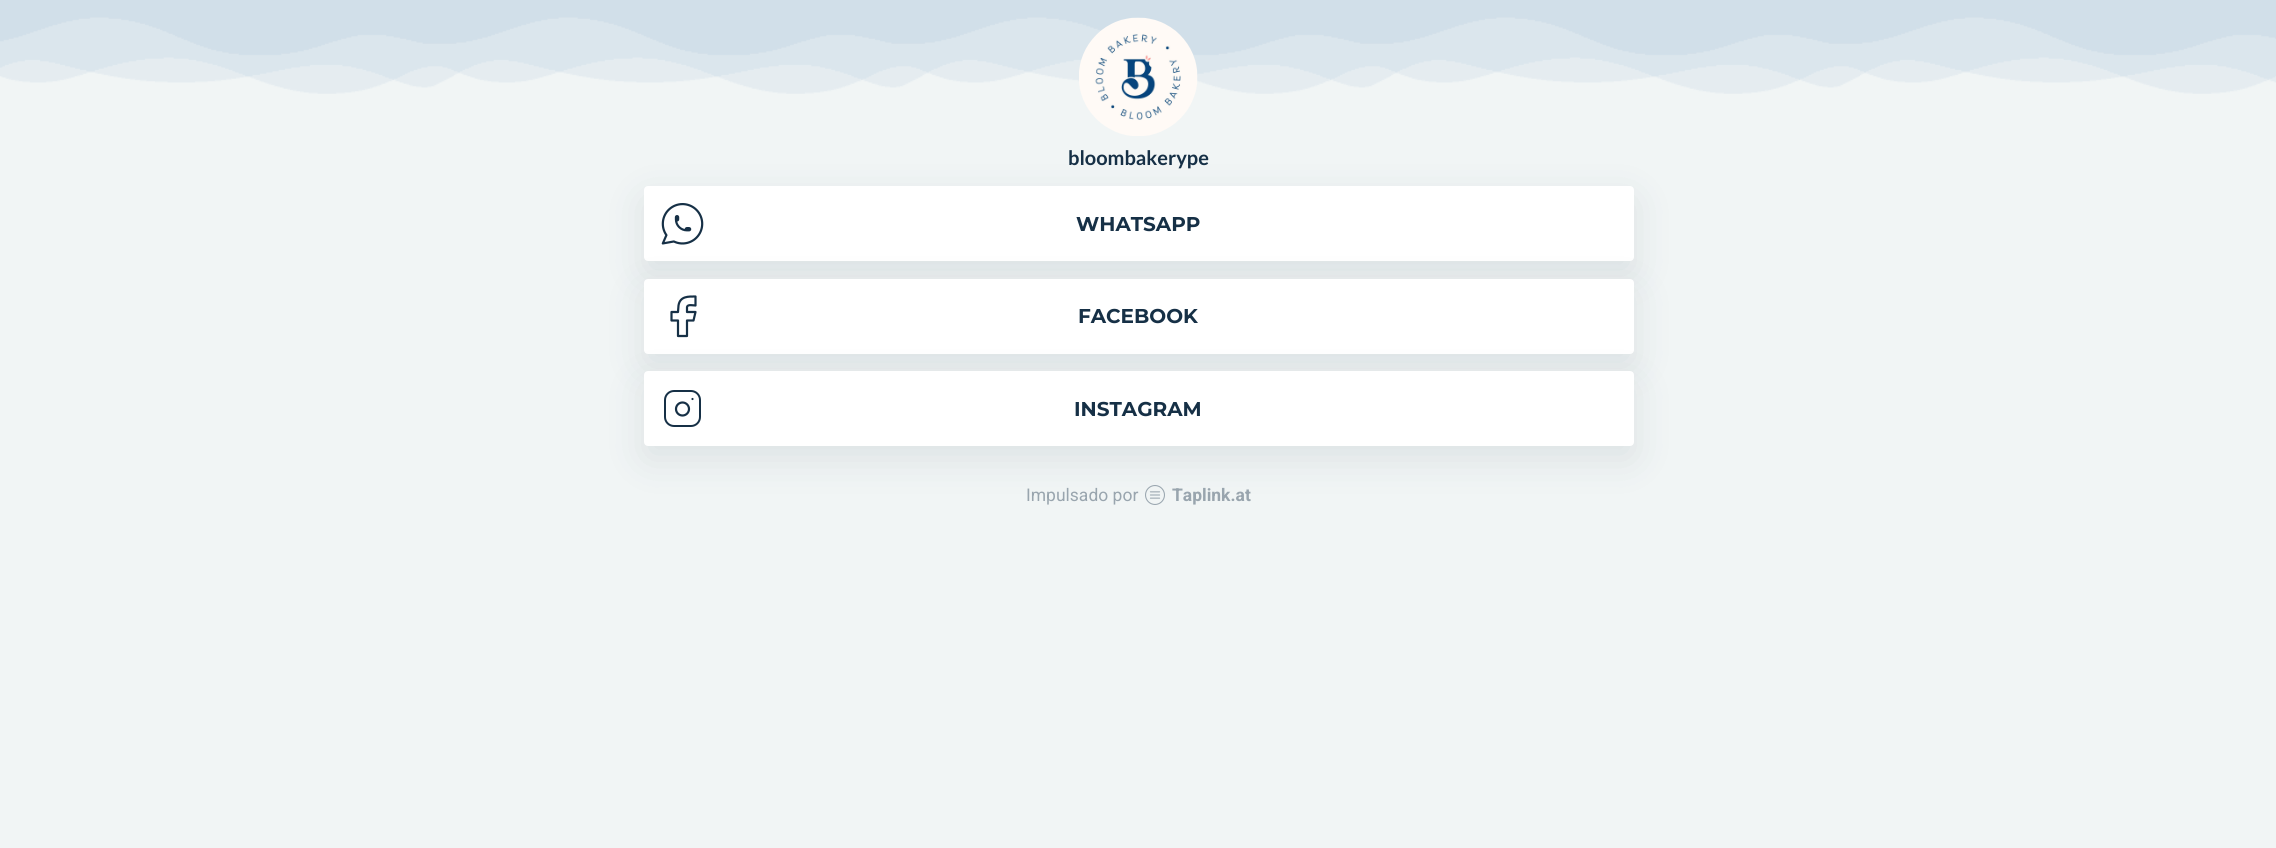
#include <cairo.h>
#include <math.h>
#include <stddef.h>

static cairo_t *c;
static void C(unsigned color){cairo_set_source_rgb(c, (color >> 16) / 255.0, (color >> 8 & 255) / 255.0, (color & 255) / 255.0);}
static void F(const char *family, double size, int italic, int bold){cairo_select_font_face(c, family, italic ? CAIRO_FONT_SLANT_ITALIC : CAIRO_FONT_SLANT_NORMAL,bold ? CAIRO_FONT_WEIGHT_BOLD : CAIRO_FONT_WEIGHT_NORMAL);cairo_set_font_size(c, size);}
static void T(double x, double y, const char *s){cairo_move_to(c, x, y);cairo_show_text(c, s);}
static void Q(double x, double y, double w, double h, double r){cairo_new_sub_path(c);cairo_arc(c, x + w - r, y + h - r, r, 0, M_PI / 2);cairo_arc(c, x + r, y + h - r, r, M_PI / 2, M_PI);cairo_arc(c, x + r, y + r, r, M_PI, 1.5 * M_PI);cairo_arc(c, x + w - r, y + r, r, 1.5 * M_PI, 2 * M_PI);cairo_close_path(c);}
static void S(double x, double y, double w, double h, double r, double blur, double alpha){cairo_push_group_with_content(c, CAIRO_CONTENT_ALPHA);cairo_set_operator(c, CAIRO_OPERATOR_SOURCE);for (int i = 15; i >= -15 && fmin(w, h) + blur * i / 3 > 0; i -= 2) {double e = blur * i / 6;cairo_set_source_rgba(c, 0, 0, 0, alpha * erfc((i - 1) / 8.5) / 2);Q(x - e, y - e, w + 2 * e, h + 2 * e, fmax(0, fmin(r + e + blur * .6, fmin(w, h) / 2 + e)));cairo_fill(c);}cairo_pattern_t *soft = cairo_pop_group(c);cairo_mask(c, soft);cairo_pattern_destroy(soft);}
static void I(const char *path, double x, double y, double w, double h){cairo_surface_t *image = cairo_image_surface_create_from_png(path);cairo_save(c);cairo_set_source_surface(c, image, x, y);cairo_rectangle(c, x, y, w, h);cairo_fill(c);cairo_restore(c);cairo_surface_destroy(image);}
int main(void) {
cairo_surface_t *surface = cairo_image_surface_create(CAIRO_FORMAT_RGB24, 2276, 848);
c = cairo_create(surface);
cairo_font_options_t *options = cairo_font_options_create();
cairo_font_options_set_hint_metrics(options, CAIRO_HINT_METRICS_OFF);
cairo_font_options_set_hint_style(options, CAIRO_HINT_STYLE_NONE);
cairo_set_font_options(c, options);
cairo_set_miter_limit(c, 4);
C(0xf1f5f5);
cairo_paint(c);
I("1.png",0,0,2276,94);
I("2.png",1079,17,119,119);
F("Lato",20,0,1);
C(0x163046);
T(1068,165,"bloombakerype");
C(0x163046);
S(644,199,990,75,4,19,.1);
C(0xffffff);
Q(645.5,187.5,987,72,2.5);
cairo_fill_preserve(c);
cairo_set_line_width(c,3);
cairo_stroke(c);
I("3.png",661,203,43,42);
F("Montserrat Thin",20,0,0);
C(0x163046);
T(1076,231,"WHATSAPP");
C(0x163046);
S(644,291,990,75,4,19,.1);
C(0xffffff);
Q(645.5,280.5,987,72,2.5);
cairo_fill_preserve(c);
cairo_stroke(c);
cairo_new_path(c);
cairo_move_to(c,671.5,312);
cairo_line_to(c,671.5,320.5);
cairo_line_to(c,678,320.5);
cairo_line_to(c,678,336);
cairo_line_to(c,687,336);
cairo_line_to(c,687,320.5);
cairo_line_to(c,693.5,320.5);
cairo_line_to(c,695.5,312);
cairo_line_to(c,687,312);
cairo_line_to(c,687,307);
cairo_curve_to(c,687.5,304,693.5,305.5,695.5,305.5);
cairo_line_to(c,695.5,296.5);
cairo_curve_to(c,688.5,296.5,680,296,678.5,305.5);
cairo_line_to(c,678,312);
cairo_line_to(c,671.5,312);
C(0x163046);
cairo_set_line_width(c,2.2);
cairo_set_line_cap(c,CAIRO_LINE_CAP_ROUND);
cairo_set_line_join(c,CAIRO_LINE_JOIN_ROUND);
cairo_stroke(c);
T(1078,323,"FACEBOOK");
C(0x163046);
S(644,384,990,75,4,19,.1);
C(0xffffff);
Q(645.5,372.5,987,72,2.5);
cairo_fill_preserve(c);
cairo_set_line_width(c,3);
cairo_set_line_cap(c,CAIRO_LINE_CAP_BUTT);
cairo_set_line_join(c,CAIRO_LINE_JOIN_MITER);
cairo_stroke(c);
Q(665,391,35,35,9);
C(0x163046);
cairo_set_line_width(c,2);
cairo_stroke(c);
cairo_arc(c,682.5,409,6.5,0,2 * M_PI);
cairo_set_line_width(c,2.2);
cairo_stroke(c);
cairo_new_path(c);
cairo_move_to(c,692.5,399);
cairo_line_to(c,692.5,399);
cairo_set_line_cap(c,CAIRO_LINE_CAP_ROUND);
cairo_set_line_join(c,CAIRO_LINE_JOIN_ROUND);
cairo_stroke(c);
T(1074,416,"INSTAGRAM");
F("Roboto",17.5,0,0);
C(0x99a5ae);
T(1026,501,"Impulsado por");
I("4.png",1145,485,20,20);
F("Roboto",17.5,0,1);
T(1172,501,"Taplink.at");
cairo_surface_write_to_png(surface, "o.png");
cairo_font_options_destroy(options);
cairo_destroy(c);
cairo_surface_destroy(surface);
return 0;
}
